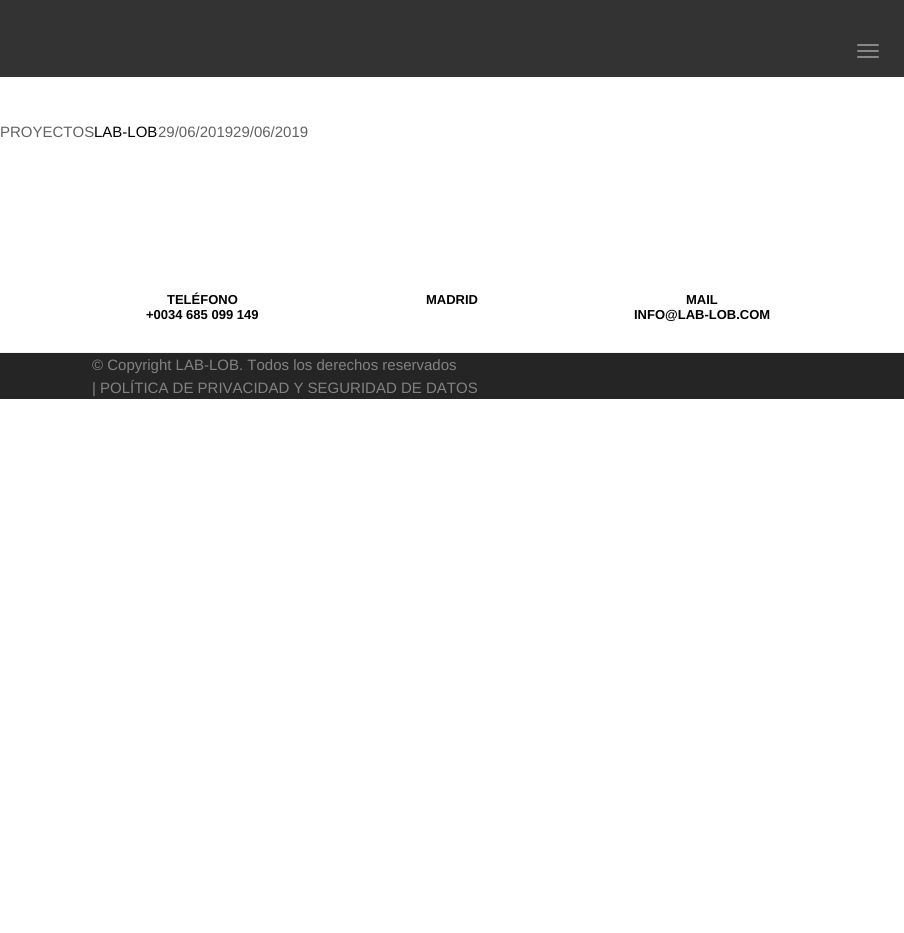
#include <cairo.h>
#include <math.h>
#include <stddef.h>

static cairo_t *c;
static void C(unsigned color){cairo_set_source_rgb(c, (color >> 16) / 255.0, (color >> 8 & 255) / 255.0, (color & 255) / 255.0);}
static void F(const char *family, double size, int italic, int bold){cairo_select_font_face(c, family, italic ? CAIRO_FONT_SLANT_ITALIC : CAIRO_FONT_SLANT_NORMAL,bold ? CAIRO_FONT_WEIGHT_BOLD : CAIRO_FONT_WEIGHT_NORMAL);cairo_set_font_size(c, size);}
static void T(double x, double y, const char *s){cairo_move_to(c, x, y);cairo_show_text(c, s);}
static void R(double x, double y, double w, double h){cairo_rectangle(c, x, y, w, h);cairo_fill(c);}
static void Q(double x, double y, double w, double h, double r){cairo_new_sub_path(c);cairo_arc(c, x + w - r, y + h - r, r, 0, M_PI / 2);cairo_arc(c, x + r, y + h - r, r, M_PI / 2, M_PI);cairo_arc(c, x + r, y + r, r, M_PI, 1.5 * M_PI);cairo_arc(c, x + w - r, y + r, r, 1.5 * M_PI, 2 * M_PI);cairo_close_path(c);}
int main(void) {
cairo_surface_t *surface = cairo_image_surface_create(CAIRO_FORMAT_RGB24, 904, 933);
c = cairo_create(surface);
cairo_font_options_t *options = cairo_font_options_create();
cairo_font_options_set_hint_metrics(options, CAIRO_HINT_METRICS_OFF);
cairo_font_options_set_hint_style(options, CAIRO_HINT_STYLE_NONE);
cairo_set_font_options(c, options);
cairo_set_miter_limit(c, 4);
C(0xffffff);
cairo_paint(c);
C(0x333333);
R(0,0,904,77);
C(0x888888);
Q(857,44,22,2,1);
cairo_fill(c);
Q(857,50,22,2,1);
cairo_fill(c);
Q(857,56,22,2,1);
cairo_fill(c);
F("Liberation Sans",15,0,0);
C(0x626262);
T(0,137,"PROYECTOS");
C(0x000000);
T(94,137,"LAB-LOB");
C(0x626262);
T(158,137,"29/06/201929/06/2019");
C(0xf4f4f4);
R(0,352,904,1);
F("Liberation Sans",13,0,1);
C(0x000000);
T(167,304,"TELÉFONO");
T(146,319,"+0034 685 099 149");
T(426,304,"MADRID");
T(686,304,"MAIL");
T(634,319,"INFO@LAB-LOB.COM");
C(0x252525);
R(0,353,904,46);
F("Liberation Sans",15,0,0);
C(0x828282);
T(92,370,"© Copyright LAB-LOB. Todos los derechos reservados");
T(92,393,"| POLÍTICA DE PRIVACIDAD Y SEGURIDAD DE DATOS");
cairo_surface_write_to_png(surface, "o.png");
cairo_font_options_destroy(options);
cairo_destroy(c);
cairo_surface_destroy(surface);
return 0;
}
